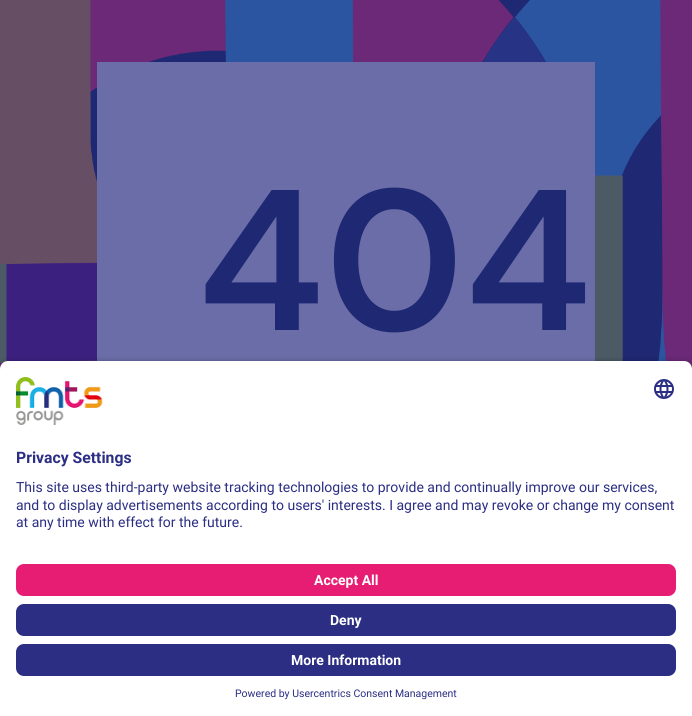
#include <cairo.h>
#include <math.h>
#include <stddef.h>

static cairo_t *c;
static void C(unsigned color){cairo_set_source_rgb(c, (color >> 16) / 255.0, (color >> 8 & 255) / 255.0, (color & 255) / 255.0);}
static void F(const char *family, double size, int italic, int bold){cairo_select_font_face(c, family, italic ? CAIRO_FONT_SLANT_ITALIC : CAIRO_FONT_SLANT_NORMAL,bold ? CAIRO_FONT_WEIGHT_BOLD : CAIRO_FONT_WEIGHT_NORMAL);cairo_set_font_size(c, size);}
static void T(double x, double y, const char *s){cairo_move_to(c, x, y);cairo_show_text(c, s);}
static void R(double x, double y, double w, double h){cairo_rectangle(c, x, y, w, h);cairo_fill(c);}
static void Q(double x, double y, double w, double h, double r){cairo_new_sub_path(c);cairo_arc(c, x + w - r, y + h - r, r, 0, M_PI / 2);cairo_arc(c, x + r, y + h - r, r, M_PI / 2, M_PI);cairo_arc(c, x + r, y + r, r, M_PI, 1.5 * M_PI);cairo_arc(c, x + w - r, y + r, r, 1.5 * M_PI, 2 * M_PI);cairo_close_path(c);}
static void S(double x, double y, double w, double h, double r, double blur, double alpha){cairo_push_group_with_content(c, CAIRO_CONTENT_ALPHA);cairo_set_operator(c, CAIRO_OPERATOR_SOURCE);for (int i = 15; i >= -15 && fmin(w, h) + blur * i / 3 > 0; i -= 2) {double e = blur * i / 6;cairo_set_source_rgba(c, 0, 0, 0, alpha * erfc((i - 1) / 8.5) / 2);Q(x - e, y - e, w + 2 * e, h + 2 * e, fmax(0, fmin(r + e + blur * .6, fmin(w, h) / 2 + e)));cairo_fill(c);}cairo_pattern_t *soft = cairo_pop_group(c);cairo_mask(c, soft);cairo_pattern_destroy(soft);}
static void I(const char *path, double x, double y, double w, double h){cairo_surface_t *image = cairo_image_surface_create_from_png(path);cairo_save(c);cairo_set_source_surface(c, image, x, y);cairo_rectangle(c, x, y, w, h);cairo_fill(c);cairo_restore(c);cairo_surface_destroy(image);}
int main(void) {
cairo_surface_t *surface = cairo_image_surface_create(CAIRO_FORMAT_RGB24, 692, 716);
c = cairo_create(surface);
cairo_font_options_t *options = cairo_font_options_create();
cairo_font_options_set_hint_metrics(options, CAIRO_HINT_METRICS_OFF);
cairo_font_options_set_hint_style(options, CAIRO_HINT_STYLE_NONE);
cairo_set_font_options(c, options);
cairo_set_miter_limit(c, 4);
C(0xffffff);
cairo_paint(c);
I("1.png",0,0,692,369);
C(0x6b6da8);
R(97,62,498,299);
F("DM Sans SemiBold",200,0,0);
C(0x1e2873);
T(197,330,"404");
C(0x000000);
S(0,364,692,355,8,3.5,.8);
C(0xffffff);
cairo_new_path(c);
cairo_move_to(c,8,361);
cairo_line_to(c,684,361);
cairo_curve_to(c,688.5,361,692,364.5,692,369);
cairo_line_to(c,692,552);
cairo_line_to(c,0,552);
cairo_line_to(c,0,369);
cairo_curve_to(c,0,364.5,3.5,361,8,361);
cairo_close_path(c);
cairo_fill(c);
I("2.png",16,377,87,48);
I("3.png",654,379,20,20);
F("Roboto",15.75,0,1);
C(0x2b2e83);
T(16,463,"Privacy Settings");
F("Roboto",14,0,0);
T(16,492,"This site uses third-party website tracking technologies to provide and continually improve our services,");
T(16,510,"and to display advertisements according to users' interests. I agree and may revoke or change my consent");
T(16,527,"at any time with effect for the future.");
C(0xffffff);
R(0,552,692,164);
C(0xe71d73);
Q(16,564,660,32,8);
cairo_fill(c);
F("Roboto",14,0,1);
C(0xffffff);
T(314,585,"Accept All");
C(0x2b2e83);
Q(16,604,660,32,8);
cairo_fill(c);
C(0xffffff);
T(330,625,"Deny");
C(0x2b2e83);
Q(16,644,660,32,8);
cairo_fill(c);
C(0xffffff);
T(291,665,"More Information");
F("Roboto",10.5,0,0);
C(0x2b2e83);
T(235,697,"Powered by Usercentrics Consent Management");
cairo_surface_write_to_png(surface, "o.png");
cairo_font_options_destroy(options);
cairo_destroy(c);
cairo_surface_destroy(surface);
return 0;
}
